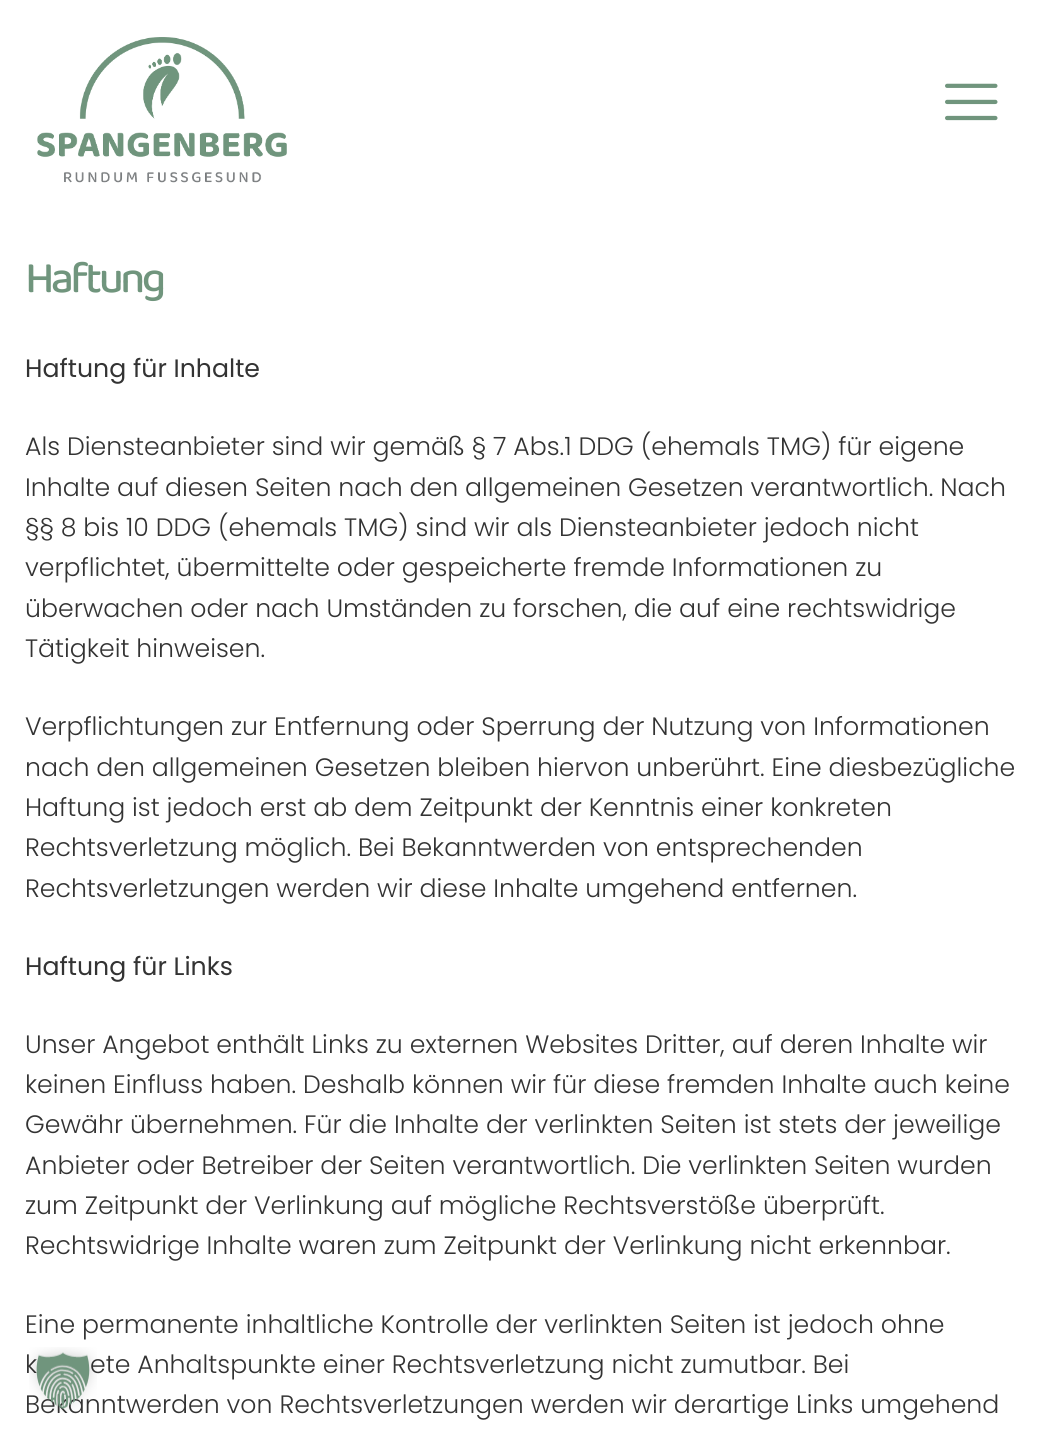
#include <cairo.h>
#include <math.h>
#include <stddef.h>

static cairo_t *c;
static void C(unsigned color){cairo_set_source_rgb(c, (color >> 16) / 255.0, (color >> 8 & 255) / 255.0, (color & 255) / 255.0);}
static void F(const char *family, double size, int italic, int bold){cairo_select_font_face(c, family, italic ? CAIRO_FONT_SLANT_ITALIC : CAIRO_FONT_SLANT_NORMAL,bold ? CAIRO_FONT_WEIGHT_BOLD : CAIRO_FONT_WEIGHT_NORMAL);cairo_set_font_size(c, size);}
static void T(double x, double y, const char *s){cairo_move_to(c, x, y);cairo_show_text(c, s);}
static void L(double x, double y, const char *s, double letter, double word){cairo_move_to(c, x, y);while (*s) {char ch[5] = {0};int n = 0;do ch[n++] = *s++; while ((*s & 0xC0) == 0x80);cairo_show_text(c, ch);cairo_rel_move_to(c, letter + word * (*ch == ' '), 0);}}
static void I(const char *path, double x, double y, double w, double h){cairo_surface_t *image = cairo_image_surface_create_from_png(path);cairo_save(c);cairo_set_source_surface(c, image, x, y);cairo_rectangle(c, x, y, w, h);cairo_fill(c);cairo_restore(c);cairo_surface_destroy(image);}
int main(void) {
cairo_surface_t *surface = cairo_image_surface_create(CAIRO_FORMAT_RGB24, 1049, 1443);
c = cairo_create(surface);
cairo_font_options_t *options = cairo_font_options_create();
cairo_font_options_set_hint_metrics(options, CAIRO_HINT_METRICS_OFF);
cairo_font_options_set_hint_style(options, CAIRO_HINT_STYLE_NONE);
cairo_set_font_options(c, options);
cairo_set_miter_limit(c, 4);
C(0xffffff);
cairo_paint(c);
I("1.png",37,37,250,146);
I("2.png",945,83,53,38);
F("Baloo Tammudu 2 Medium",45,0,0);
C(0x70957d);
L(25,292,"Haftung",-3.5,0);
F("Poppins",25.2,0,0);
C(0x333333);
T(25,377,"Haftung für Inhalte");
F("Poppins Light",25.2,0,0);
T(25,455,"Als Diensteanbieter sind wir gemäß § 7 Abs.1 DDG (ehemals TMG) für eigene");
T(25,496,"Inhalte auf diesen Seiten nach den allgemeinen Gesetzen verantwortlich. Nach");
T(25,536,"§§ 8 bis 10 DDG (ehemals TMG) sind wir als Diensteanbieter jedoch nicht");
T(25,576,"verpflichtet, übermittelte oder gespeicherte fremde Informationen zu");
T(25,617,"überwachen oder nach Umständen zu forschen, die auf eine rechtswidrige");
T(25,657,"Tätigkeit hinweisen.");
T(25,735,"Verpflichtungen zur Entfernung oder Sperrung der Nutzung von Informationen");
T(25,776,"nach den allgemeinen Gesetzen bleiben hiervon unberührt. Eine diesbezügliche");
T(25,816,"Haftung ist jedoch erst ab dem Zeitpunkt der Kenntnis einer konkreten");
T(25,856,"Rechtsverletzung möglich. Bei Bekanntwerden von entsprechenden");
T(25,897,"Rechtsverletzungen werden wir diese Inhalte umgehend entfernen.");
F("Poppins",25.2,0,0);
T(25,975,"Haftung für Links");
F("Poppins Light",25.2,0,0);
T(25,1053,"Unser Angebot enthält Links zu externen Websites Dritter, auf deren Inhalte wir");
T(25,1093,"keinen Einfluss haben. Deshalb können wir für diese fremden Inhalte auch keine");
T(25,1133,"Gewähr übernehmen. Für die Inhalte der verlinkten Seiten ist stets der jeweilige");
T(25,1174,"Anbieter oder Betreiber der Seiten verantwortlich. Die verlinkten Seiten wurden");
T(25,1214,"zum Zeitpunkt der Verlinkung auf mögliche Rechtsverstöße überprüft.");
T(25,1254,"Rechtswidrige Inhalte waren zum Zeitpunkt der Verlinkung nicht erkennbar.");
T(25,1333,"Eine permanente inhaltliche Kontrolle der verlinkten Seiten ist jedoch ohne");
T(25,1373,"k");
T(90,1373,"ete Anhaltspunkte einer Rechtsverletzung nicht zumutbar. Bei");
T(25,1413,"Bekanntwerden von Rechtsverletzungen werden wir derartige Links umgehend");
I("3.png",29,1347,68,65);
cairo_surface_write_to_png(surface, "o.png");
cairo_font_options_destroy(options);
cairo_destroy(c);
cairo_surface_destroy(surface);
return 0;
}
